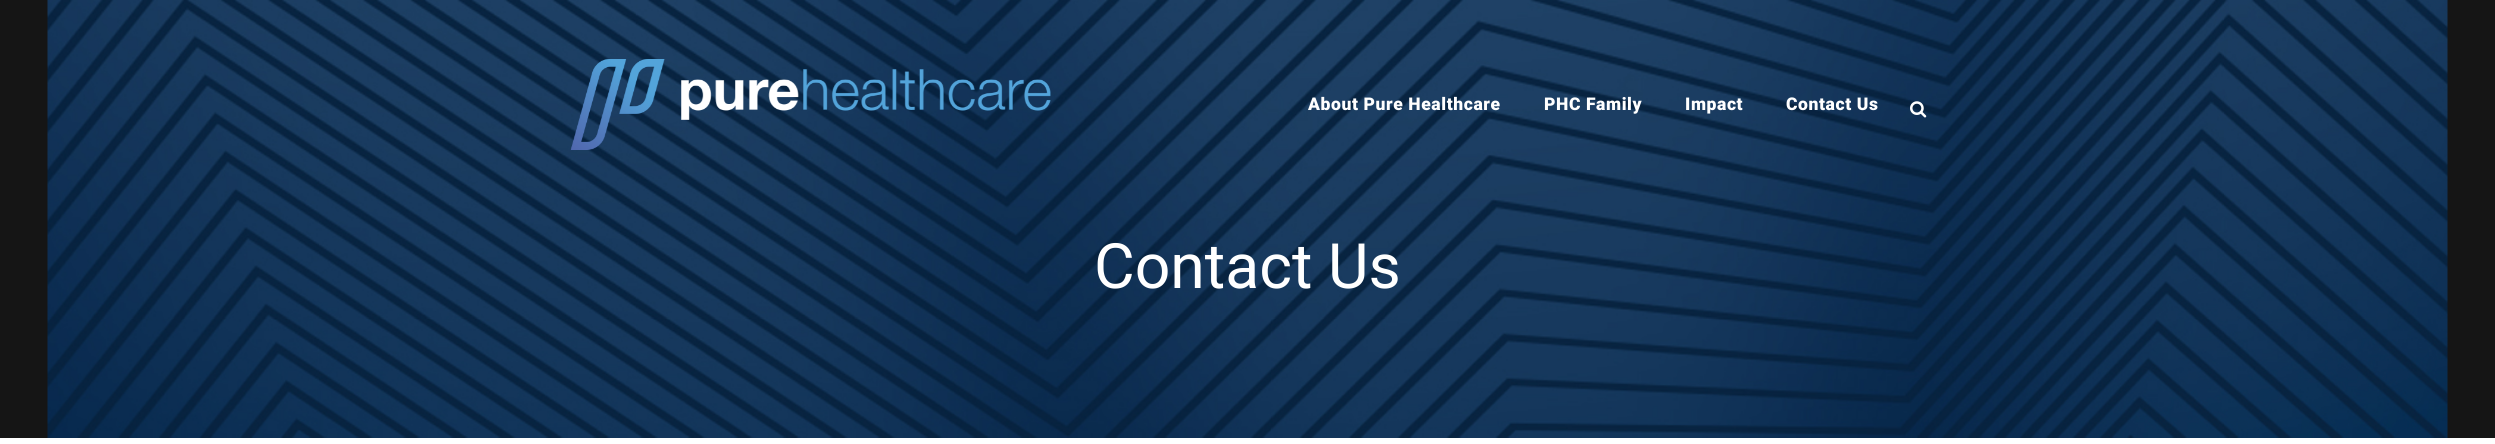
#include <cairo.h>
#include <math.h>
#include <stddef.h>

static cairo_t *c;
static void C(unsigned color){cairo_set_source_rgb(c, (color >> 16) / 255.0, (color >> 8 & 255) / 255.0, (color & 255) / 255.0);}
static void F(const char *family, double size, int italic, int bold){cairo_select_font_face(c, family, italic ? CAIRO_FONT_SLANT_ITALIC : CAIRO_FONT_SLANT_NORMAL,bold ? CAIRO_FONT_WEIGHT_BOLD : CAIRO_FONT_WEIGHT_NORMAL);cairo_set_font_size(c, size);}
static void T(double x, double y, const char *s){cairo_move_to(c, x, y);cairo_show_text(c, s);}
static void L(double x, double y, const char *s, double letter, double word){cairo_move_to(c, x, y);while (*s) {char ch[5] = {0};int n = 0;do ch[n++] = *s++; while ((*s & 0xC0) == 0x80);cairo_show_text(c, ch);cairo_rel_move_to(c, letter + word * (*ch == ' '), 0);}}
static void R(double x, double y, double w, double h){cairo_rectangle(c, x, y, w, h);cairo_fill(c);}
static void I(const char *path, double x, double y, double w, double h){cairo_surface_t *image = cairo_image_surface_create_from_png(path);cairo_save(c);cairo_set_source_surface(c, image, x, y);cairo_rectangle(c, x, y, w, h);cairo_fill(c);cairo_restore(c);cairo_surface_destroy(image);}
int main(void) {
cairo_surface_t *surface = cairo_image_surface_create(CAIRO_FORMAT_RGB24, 2495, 444);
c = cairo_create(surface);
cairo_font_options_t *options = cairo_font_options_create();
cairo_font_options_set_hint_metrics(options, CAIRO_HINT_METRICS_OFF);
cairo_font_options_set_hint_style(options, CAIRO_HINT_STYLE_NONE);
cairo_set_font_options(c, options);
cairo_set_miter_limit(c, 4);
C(0x151515);
cairo_paint(c);
I("3.png",47,0,2401,438);
I("1.png",570,59,481,91);
F("Roboto Black",17.5,0,0);
C(0xffffff);
L(1308,110,"About Pure Healthcare",.6,0);
L(1544,110,"PHC Family",.6,0);
L(1685,110,"Impact",.6,0);
L(1786,110,"Contact Us",.6,0);
I("2.png",1910,101,17,17);
F("Roboto",62.5,0,0);
T(1094,288,"Contact Us");
R(0,438,2495,6);
cairo_surface_write_to_png(surface, "o.png");
cairo_font_options_destroy(options);
cairo_destroy(c);
cairo_surface_destroy(surface);
return 0;
}
